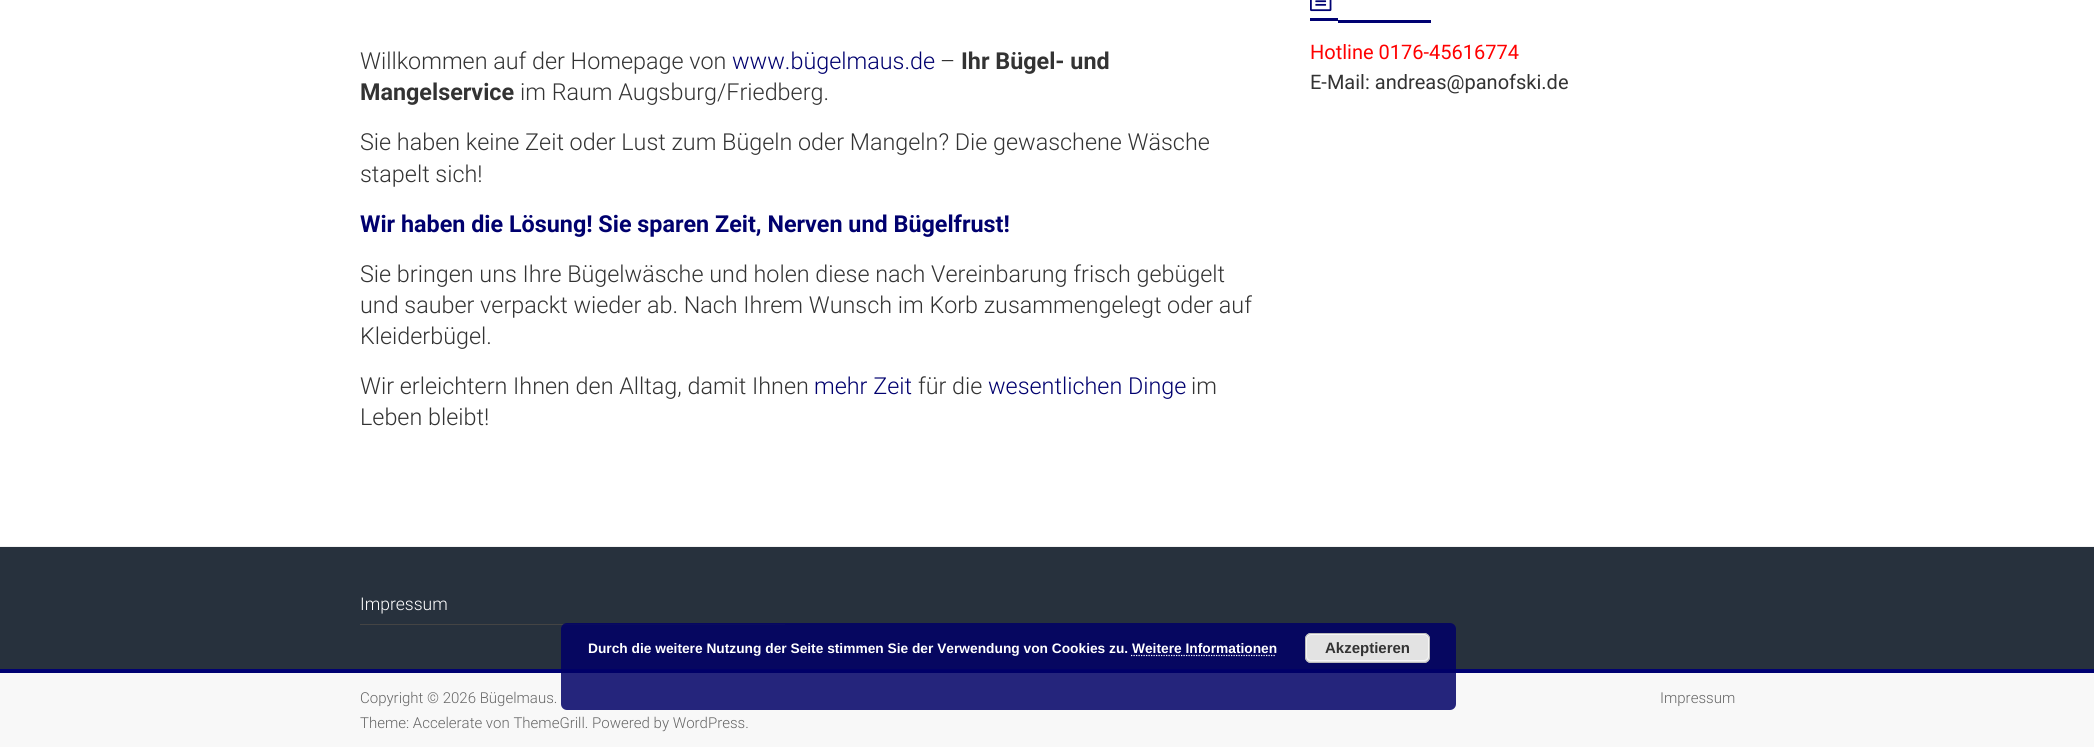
#include <cairo.h>
#include <math.h>
#include <stddef.h>

static cairo_t *c;
static void C(unsigned color){cairo_set_source_rgb(c, (color >> 16) / 255.0, (color >> 8 & 255) / 255.0, (color & 255) / 255.0);}
static void F(const char *family, double size, int italic, int bold){cairo_select_font_face(c, family, italic ? CAIRO_FONT_SLANT_ITALIC : CAIRO_FONT_SLANT_NORMAL,bold ? CAIRO_FONT_WEIGHT_BOLD : CAIRO_FONT_WEIGHT_NORMAL);cairo_set_font_size(c, size);}
static void T(double x, double y, const char *s){cairo_move_to(c, x, y);cairo_show_text(c, s);}
static void R(double x, double y, double w, double h){cairo_rectangle(c, x, y, w, h);cairo_fill(c);}
static void Q(double x, double y, double w, double h, double r){cairo_new_sub_path(c);cairo_arc(c, x + w - r, y + h - r, r, 0, M_PI / 2);cairo_arc(c, x + r, y + h - r, r, M_PI / 2, M_PI);cairo_arc(c, x + r, y + r, r, M_PI, 1.5 * M_PI);cairo_arc(c, x + w - r, y + r, r, 1.5 * M_PI, 2 * M_PI);cairo_close_path(c);}
static void I(const char *path, double x, double y, double w, double h){cairo_surface_t *image = cairo_image_surface_create_from_png(path);cairo_save(c);cairo_set_source_surface(c, image, x, y);cairo_rectangle(c, x, y, w, h);cairo_fill(c);cairo_restore(c);cairo_surface_destroy(image);}
int main(void) {
cairo_surface_t *surface = cairo_image_surface_create(CAIRO_FORMAT_RGB24, 2094, 747);
c = cairo_create(surface);
cairo_font_options_t *options = cairo_font_options_create();
cairo_font_options_set_hint_metrics(options, CAIRO_HINT_METRICS_OFF);
cairo_font_options_set_hint_style(options, CAIRO_HINT_STYLE_NONE);
cairo_set_font_options(c, options);
cairo_set_miter_limit(c, 4);
C(0xffffff);
cairo_paint(c);
F("Roboto Light",23.35,0,0);
C(0x333333);
T(360,69,"Willkommen auf der Homepage von");
C(0x00006e);
T(732,69,"www.bügelmaus.de");
C(0x333333);
T(940,69,"–");
F("Roboto",23.35,0,1);
T(961,69,"Ihr Bügel- und");
T(360,100,"Mangelservice");
F("Roboto Light",23.35,0,0);
T(520,100,"im Raum Augsburg/Friedberg.");
T(360,150,"Sie haben keine Zeit oder Lust zum Bügeln oder Mangeln? Die gewaschene Wäsche");
T(360,182,"stapelt sich!");
F("Roboto",23.35,0,1);
C(0x00006e);
T(360,232,"Wir haben die Lösung! Sie sparen Zeit, Nerven und Bügelfrust!");
F("Roboto Light",23.35,0,0);
C(0x333333);
T(360,282,"Sie bringen uns Ihre Bügelwäsche und holen diese nach Vereinbarung frisch gebügelt");
T(360,313,"und sauber verpackt wieder ab. Nach Ihrem Wunsch im Korb zusammengelegt oder auf");
T(360,344,"Kleiderbügel.");
T(360,394,"Wir erleichtern Ihnen den Alltag, damit Ihnen");
C(0x00006e);
T(814,394,"mehr Zeit");
C(0x333333);
T(918,394,"für die");
C(0x00006e);
T(988,394,"wesentlichen Dinge");
C(0x333333);
T(1191,394,"im");
T(360,425,"Leben bleibt!");
I("1.png",1310,0,22,12);
C(0x000172);
R(1310,18,28,3);
R(1338,20,93,3);
F("Roboto",20,0,0);
C(0xff0000);
T(1310,59,"Hotline 0176-45616774");
C(0x333333);
T(1310,89,"E-Mail: andreas@panofski.de");
C(0x27313d);
R(0,547,2094,122);
C(0xf2f2f2);
R(0,546,2094,1);
C(0x444444);
R(360,624,425,1);
F("Roboto Light",17.5,0,0);
C(0xffffff);
T(360,610,"Impressum");
C(0xf8f8f8);
R(0,673,2094,74);
C(0x000172);
R(0,669,2094,4);
F("Roboto Light",15,0,0);
C(0x666666);
T(360,703,"Copyright © 2026 Bügelmaus.");
T(360,728,"Theme: Accelerate von ThemeGrill. Powered by WordPress.");
T(1660,703,"Impressum");
cairo_set_source_rgba(c,0,0,0.4,0.85);
Q(561,623,895,87,6);
cairo_fill(c);
F("Liberation Sans",13.75,0,1);
C(0xffffff);
T(588,653,"Durch die weitere Nutzung der Seite stimmen Sie der Verwendung von Cookies zu. Weitere Informationen");
C(0xe3e3e3);
Q(1305,633,125,30,6);
cairo_fill(c);
Q(1306.5,634.5,122,26,4.5);
C(0xf6f6f6);
cairo_set_line_width(c,1);
cairo_stroke(c);
Q(1305.5,633.5,124,29,5.5);
C(0xbbbbbb);
cairo_stroke(c);
F("Liberation Sans",15,0,1);
C(0x333333);
T(1325,653,"Akzeptieren");
cairo_new_path(c);
cairo_move_to(c,1131,655.5);
cairo_line_to(c,1276,655.5);
C(0xffffff);
cairo_set_line_width(c,1.2);
cairo_set_dash(c,(double[]){1.25,1.25},2,0);
cairo_stroke(c);
cairo_surface_write_to_png(surface, "o.png");
cairo_font_options_destroy(options);
cairo_destroy(c);
cairo_surface_destroy(surface);
return 0;
}
